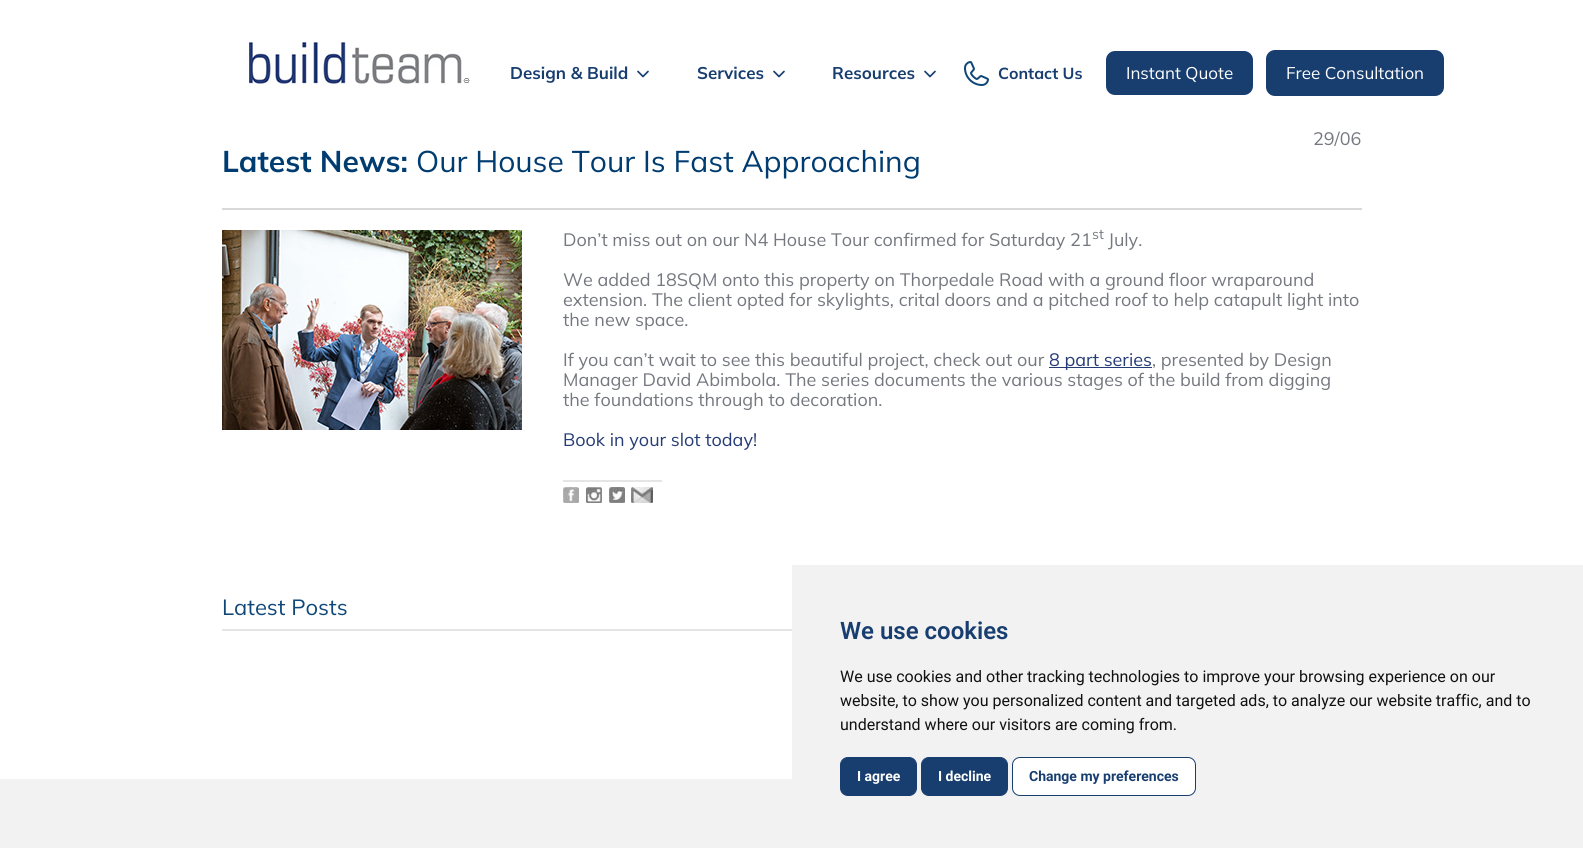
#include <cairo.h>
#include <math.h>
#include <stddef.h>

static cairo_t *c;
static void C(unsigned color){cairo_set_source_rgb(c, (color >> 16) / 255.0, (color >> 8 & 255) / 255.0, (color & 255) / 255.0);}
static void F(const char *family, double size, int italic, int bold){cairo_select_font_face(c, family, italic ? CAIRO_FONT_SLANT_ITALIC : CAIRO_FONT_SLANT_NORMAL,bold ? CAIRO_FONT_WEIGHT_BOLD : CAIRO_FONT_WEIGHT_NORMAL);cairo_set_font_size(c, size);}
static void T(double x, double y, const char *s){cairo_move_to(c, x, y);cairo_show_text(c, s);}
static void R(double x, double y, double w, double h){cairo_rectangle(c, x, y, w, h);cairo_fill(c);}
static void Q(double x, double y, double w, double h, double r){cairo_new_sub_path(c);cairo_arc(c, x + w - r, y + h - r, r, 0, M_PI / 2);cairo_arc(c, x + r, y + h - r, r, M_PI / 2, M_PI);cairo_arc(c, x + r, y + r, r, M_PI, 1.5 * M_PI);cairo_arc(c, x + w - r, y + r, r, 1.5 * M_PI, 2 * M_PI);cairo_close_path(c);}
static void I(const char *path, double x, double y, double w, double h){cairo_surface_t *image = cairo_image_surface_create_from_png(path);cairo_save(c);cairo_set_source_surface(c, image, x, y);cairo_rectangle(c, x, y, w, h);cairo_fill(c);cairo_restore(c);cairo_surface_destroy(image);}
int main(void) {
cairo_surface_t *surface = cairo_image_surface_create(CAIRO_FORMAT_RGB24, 1583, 848);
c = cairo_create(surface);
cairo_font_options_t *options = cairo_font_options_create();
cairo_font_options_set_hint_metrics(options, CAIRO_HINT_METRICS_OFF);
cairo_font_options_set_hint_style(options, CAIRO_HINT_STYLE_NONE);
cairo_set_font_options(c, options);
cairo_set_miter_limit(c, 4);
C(0xffffff);
cairo_paint(c);
I("1.png",249,42,221,42);
F("Mulish ExtraLight",17,0,0);
C(0x183e70);
T(510,79,"Design & Build");
cairo_new_path(c);
cairo_move_to(c,638,71.5);
cairo_line_to(c,643,76.5);
cairo_line_to(c,648,71.5);
cairo_set_line_width(c,1.7);
cairo_set_line_cap(c,CAIRO_LINE_CAP_ROUND);
cairo_set_line_join(c,CAIRO_LINE_JOIN_ROUND);
cairo_stroke(c);
T(697,79,"Services");
cairo_new_path(c);
cairo_move_to(c,774,71.5);
cairo_line_to(c,779,76.5);
cairo_line_to(c,784,71.5);
cairo_stroke(c);
T(832,79,"Resources");
cairo_new_path(c);
cairo_move_to(c,925,71.5);
cairo_line_to(c,930,76.5);
cairo_line_to(c,935,71.5);
cairo_stroke(c);
I("2.png",964,61,25,25);
F("Mulish ExtraLight",16,0,0);
T(998,79,"Contact Us");
Q(1106,51,147,44,9);
cairo_fill(c);
F("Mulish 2 ExtraLight",17,0,0);
C(0xffffff);
T(1126,79,"Instant Quote");
C(0x183e70);
Q(1266,50,178,46,9);
cairo_fill(c);
C(0xffffff);
T(1286,79,"Free Consultation");
C(0xd9d9d9);
R(222,208,1140,2);
F("Mulish 2 ExtraLight",18,0,0);
C(0x75787f);
T(1313,145,"29/06");
F("Mulish ExtraLight",30,0,0);
C(0x003c70);
T(222,172,"Latest News:");
F("Mulish 2 ExtraLight",30,0,0);
T(416,172,"Our House Tour Is Fast Approaching");
I("3.png",222,230,300,200);
F("Mulish 2 ExtraLight",18,0,0);
C(0x75787f);
T(563,246,"Don’t miss out on our N4 House Tour confirmed for Saturday 21");
F("Mulish 2 ExtraLight",14,0,0);
T(1092,239,"st");
F("Mulish 2 ExtraLight",18,0,0);
T(1108,246,"July.");
T(563,286,"We added 18SQM onto this property on Thorpedale Road with a ground floor wraparound");
T(563,306,"extension. The client opted for skylights, crital doors and a pitched roof to help catapult light into");
T(563,326,"the new space.");
T(563,366,"If you can’t wait to see this beautiful project, check out our");
C(0x263c76);
R(1049,367,103,1);
T(1049,366,"8 part series");
C(0x75787f);
T(1152,366,", presented by Design");
T(563,386,"Manager David Abimbola. The series documents the various stages of the build from digging");
T(563,406,"the foundations through to decoration.");
C(0x263c76);
T(563,446,"Book in your slot today!");
C(0xe5e5e5);
R(563,480,99,2);
I("4.png",563,487,16,16);
I("5.png",586,487,16,16);
I("6.png",609,487,16,16);
I("7.png",631,487,22,16);
R(222,629,570,2);
F("Mulish 2 ExtraLight",22,0,0);
C(0x0f4778);
T(222,615,"Latest Posts");
C(0xf2f2f2);
R(792,565,791,283);
F("Roboto SemiBold",24,0,0);
C(0x183e70);
T(840,639,"We use cookies");
F("Roboto",16,0,0);
C(0x111111);
T(840,682,"We use cookies and other tracking technologies to improve your browsing experience on our");
T(840,706,"website, to show you personalized content and targeted ads, to analyze our website traffic, and to");
T(840,730,"understand where our visitors are coming from.");
C(0x183e70);
Q(840.5,757.5,76,38,7.5);
cairo_fill_preserve(c);
cairo_set_line_width(c,1);
cairo_set_line_cap(c,CAIRO_LINE_CAP_BUTT);
cairo_set_line_join(c,CAIRO_LINE_JOIN_MITER);
cairo_stroke(c);
F("Roboto",14,0,1);
C(0xffffff);
T(857,781,"I agree");
C(0x183e70);
Q(921.5,757.5,86,38,7.5);
cairo_fill_preserve(c);
cairo_stroke(c);
C(0xffffff);
T(938,781,"I decline");
Q(1012.5,757.5,183,38,7.5);
cairo_fill_preserve(c);
C(0x183e70);
cairo_stroke(c);
T(1029,781,"Change my preferences");
C(0xf3f2f2);
R(0,779,792,69);
cairo_surface_write_to_png(surface, "o.png");
cairo_font_options_destroy(options);
cairo_destroy(c);
cairo_surface_destroy(surface);
return 0;
}
